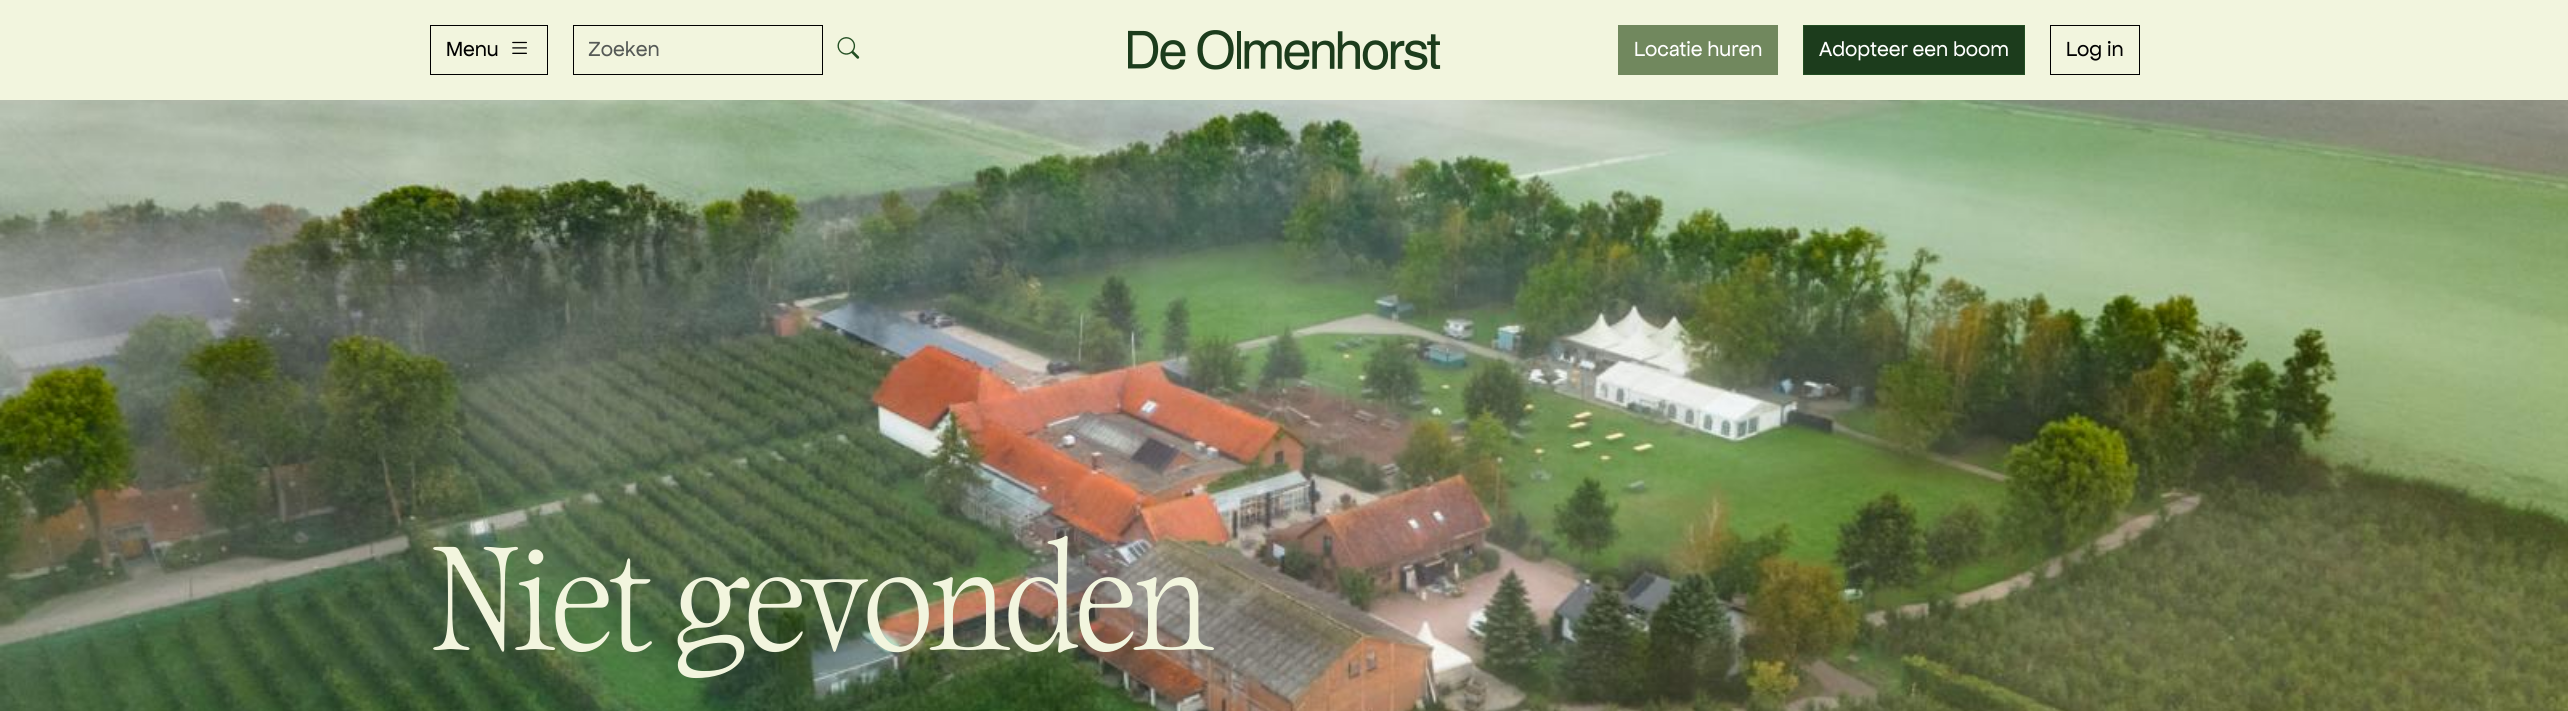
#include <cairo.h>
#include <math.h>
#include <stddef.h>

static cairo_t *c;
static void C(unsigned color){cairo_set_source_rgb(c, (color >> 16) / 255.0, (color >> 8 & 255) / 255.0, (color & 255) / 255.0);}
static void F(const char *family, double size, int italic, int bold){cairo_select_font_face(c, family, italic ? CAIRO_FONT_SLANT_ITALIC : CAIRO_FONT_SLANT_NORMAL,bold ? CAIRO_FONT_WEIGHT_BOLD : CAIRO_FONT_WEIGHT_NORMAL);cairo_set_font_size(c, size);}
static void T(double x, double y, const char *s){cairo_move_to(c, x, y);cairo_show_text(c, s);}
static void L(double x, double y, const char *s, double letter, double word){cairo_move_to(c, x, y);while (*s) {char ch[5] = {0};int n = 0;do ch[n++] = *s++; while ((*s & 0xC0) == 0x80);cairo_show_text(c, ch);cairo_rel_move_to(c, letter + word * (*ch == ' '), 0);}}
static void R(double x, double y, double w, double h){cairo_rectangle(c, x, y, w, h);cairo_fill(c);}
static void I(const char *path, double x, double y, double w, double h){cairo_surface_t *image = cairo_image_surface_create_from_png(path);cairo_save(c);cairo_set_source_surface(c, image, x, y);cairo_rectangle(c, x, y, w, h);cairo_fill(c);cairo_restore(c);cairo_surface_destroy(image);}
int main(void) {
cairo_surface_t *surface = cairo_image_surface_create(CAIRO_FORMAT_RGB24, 2568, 711);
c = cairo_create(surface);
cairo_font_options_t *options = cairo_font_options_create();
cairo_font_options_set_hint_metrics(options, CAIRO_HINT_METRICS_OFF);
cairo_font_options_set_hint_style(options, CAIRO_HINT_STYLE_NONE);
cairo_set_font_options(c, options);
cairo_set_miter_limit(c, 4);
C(0xffffff);
cairo_paint(c);
C(0xf2f5de);
R(0,0,2568,100);
cairo_rectangle(c,430.5,25.5,117,49);
C(0x000000);
cairo_set_line_width(c,1);
cairo_stroke(c);
F("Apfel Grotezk",21.75,0,0);
T(446,56,"Menu");
I("1.png",512,41,15,13);
cairo_rectangle(c,573.5,25.5,249,49);
cairo_stroke(c);
C(0x555956);
T(588,56,"Zoeken");
I("2.png",837,37,23,22);
I("3.png",1128,30,313,40);
C(0x71885e);
R(1618,25,160,50);
C(0xffffff);
T(1634,56,"Locatie huren");
C(0x1c3c1c);
cairo_rectangle(c,1803.5,25.5,221,49);
cairo_fill_preserve(c);
C(0x224e22);
cairo_stroke(c);
C(0xffffff);
T(1819,56,"Adopteer een boom");
cairo_rectangle(c,2050.5,25.5,89,49);
C(0x000000);
cairo_stroke(c);
T(2066,56,"Log in");
I("4.png",0,100,2568,611);
F("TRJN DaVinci",137.5,0,0);
C(0xf2f5de);
L(429,650,"Niet gevonden",-6.9,0);
cairo_surface_write_to_png(surface, "o.png");
cairo_font_options_destroy(options);
cairo_destroy(c);
cairo_surface_destroy(surface);
return 0;
}
